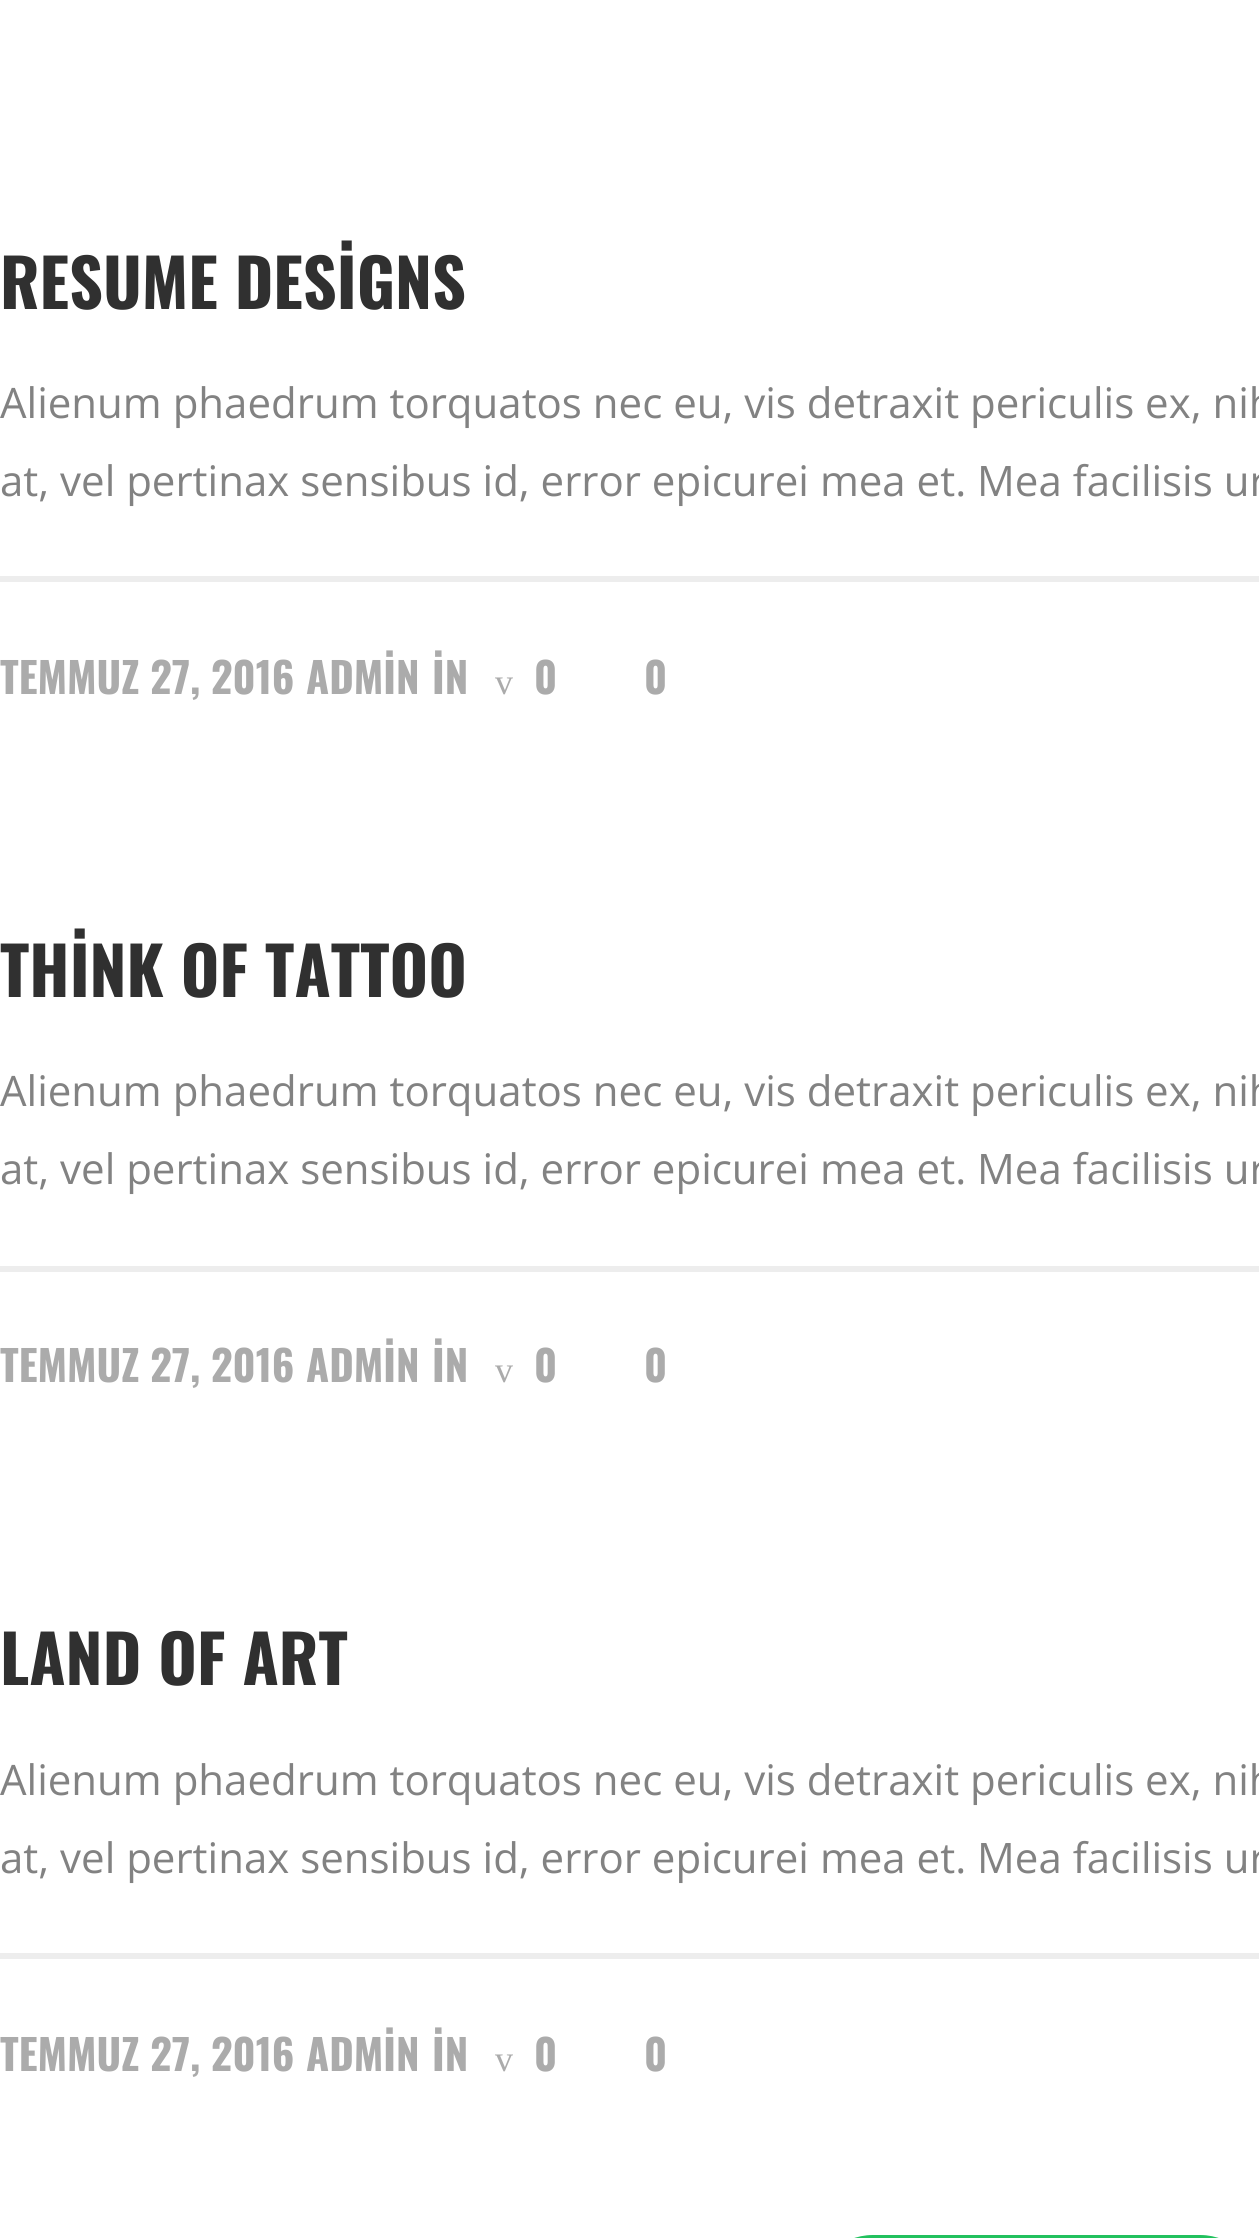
#include <cairo.h>
#include <math.h>
#include <stddef.h>

static cairo_t *c;
static void C(unsigned color){cairo_set_source_rgb(c, (color >> 16) / 255.0, (color >> 8 & 255) / 255.0, (color & 255) / 255.0);}
static void F(const char *family, double size, int italic, int bold){cairo_select_font_face(c, family, italic ? CAIRO_FONT_SLANT_ITALIC : CAIRO_FONT_SLANT_NORMAL,bold ? CAIRO_FONT_WEIGHT_BOLD : CAIRO_FONT_WEIGHT_NORMAL);cairo_set_font_size(c, size);}
static void T(double x, double y, const char *s){cairo_move_to(c, x, y);cairo_show_text(c, s);}
static void R(double x, double y, double w, double h){cairo_rectangle(c, x, y, w, h);cairo_fill(c);}
static void Q(double x, double y, double w, double h, double r){cairo_new_sub_path(c);cairo_arc(c, x + w - r, y + h - r, r, 0, M_PI / 2);cairo_arc(c, x + r, y + h - r, r, M_PI / 2, M_PI);cairo_arc(c, x + r, y + r, r, M_PI, 1.5 * M_PI);cairo_arc(c, x + w - r, y + r, r, 1.5 * M_PI, 2 * M_PI);cairo_close_path(c);}
int main(void) {
cairo_surface_t *surface = cairo_image_surface_create(CAIRO_FORMAT_RGB24, 1259, 2238);
c = cairo_create(surface);
cairo_font_options_t *options = cairo_font_options_create();
cairo_font_options_set_hint_metrics(options, CAIRO_HINT_METRICS_OFF);
cairo_font_options_set_hint_style(options, CAIRO_HINT_STYLE_NONE);
cairo_set_font_options(c, options);
cairo_set_miter_limit(c, 4);
C(0xffffff);
cairo_paint(c);
F("Oswald",66,0,1);
C(0x303030);
T(0,309,"RESUME DESİGNS");
F("Open Sans",42,0,0);
C(0x828282);
T(0,418,"Alienum phaedrum torquatos nec eu, vis detraxit periculis ex, nih");
T(0,496,"at, vel pertinax sensibus id, error epicurei mea et. Mea facilisis ur");
C(0xededed);
R(0,576,1259,6);
F("Oswald",42,0,1);
C(0xababab);
T(0,694,"TEMMUZ 27, 2016");
T(306,694,"ADMİN");
T(432,694,"İN");
F("Liberation Serif",36,0,0);
T(495,694,"v");
F("Oswald",42,0,1);
T(534,694,"0");
T(644,694,"0");
F("Oswald",66,0,1);
C(0x303030);
T(0,997,"THİNK OF TATTOO");
F("Open Sans",42,0,0);
C(0x828282);
T(0,1106,"Alienum phaedrum torquatos nec eu, vis detraxit periculis ex, nih");
T(0,1184,"at, vel pertinax sensibus id, error epicurei mea et. Mea facilisis ur");
C(0xededed);
R(0,1266,1259,6);
F("Oswald",42,0,1);
C(0xababab);
T(0,1382,"TEMMUZ 27, 2016");
T(306,1382,"ADMİN");
T(432,1382,"İN");
F("Liberation Serif",36,0,0);
T(495,1382,"v");
F("Oswald",42,0,1);
T(534,1382,"0");
T(644,1382,"0");
F("Oswald",66,0,1);
C(0x303030);
T(0,1685,"LAND OF ART");
F("Open Sans",42,0,0);
C(0x828282);
T(0,1795,"Alienum phaedrum torquatos nec eu, vis detraxit periculis ex, nih");
T(0,1873,"at, vel pertinax sensibus id, error epicurei mea et. Mea facilisis ur");
C(0xededed);
R(0,1953,1259,6);
F("Oswald",42,0,1);
C(0xababab);
T(0,2071,"TEMMUZ 27, 2016");
T(306,2071,"ADMİN");
T(432,2071,"İN");
F("Liberation Serif",36,0,0);
T(495,2071,"v");
F("Oswald",42,0,1);
T(534,2071,"0");
T(644,2071,"0");
C(0x22c15e);
Q(813,2235,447,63,60);
cairo_fill(c);
cairo_surface_write_to_png(surface, "o.png");
cairo_font_options_destroy(options);
cairo_destroy(c);
cairo_surface_destroy(surface);
return 0;
}
